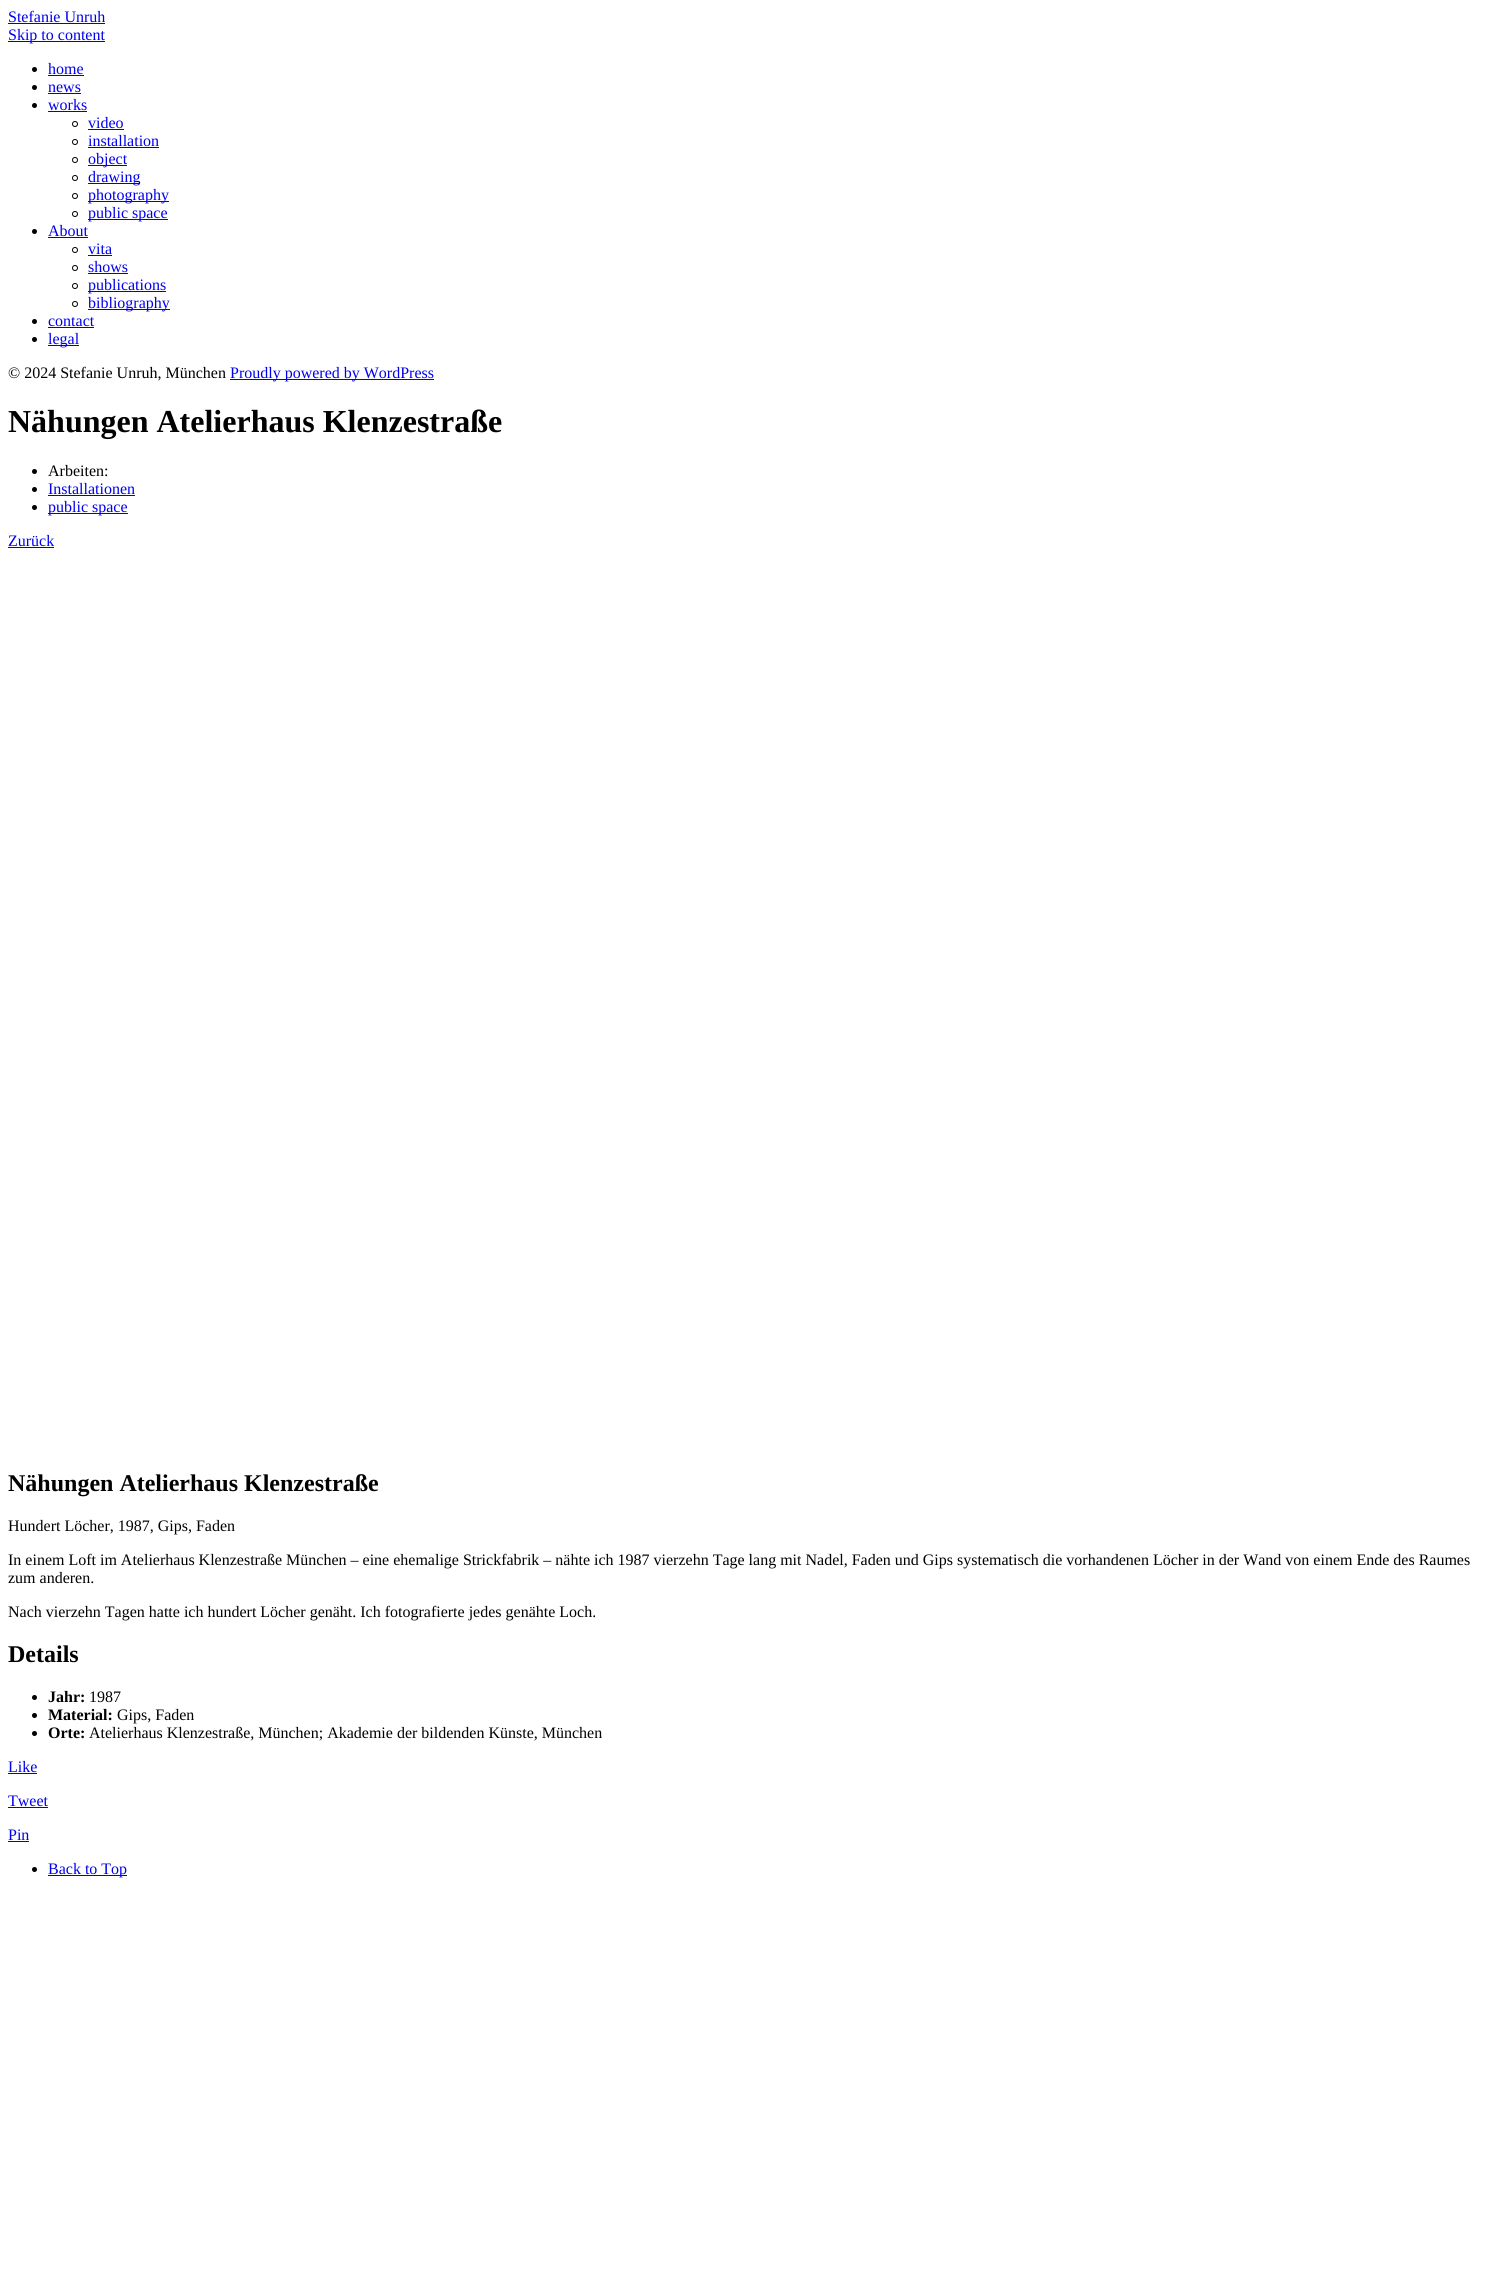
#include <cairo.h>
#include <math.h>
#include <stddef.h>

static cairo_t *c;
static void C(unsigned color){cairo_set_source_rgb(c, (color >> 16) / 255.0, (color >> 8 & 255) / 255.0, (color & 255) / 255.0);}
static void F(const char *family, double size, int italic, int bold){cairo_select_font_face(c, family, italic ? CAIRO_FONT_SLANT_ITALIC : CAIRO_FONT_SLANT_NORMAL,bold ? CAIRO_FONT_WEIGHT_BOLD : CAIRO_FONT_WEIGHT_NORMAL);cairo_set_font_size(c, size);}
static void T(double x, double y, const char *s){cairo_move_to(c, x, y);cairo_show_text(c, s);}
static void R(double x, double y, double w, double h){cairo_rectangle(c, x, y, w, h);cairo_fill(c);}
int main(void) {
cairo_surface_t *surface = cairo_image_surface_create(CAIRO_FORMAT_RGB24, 1508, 2292);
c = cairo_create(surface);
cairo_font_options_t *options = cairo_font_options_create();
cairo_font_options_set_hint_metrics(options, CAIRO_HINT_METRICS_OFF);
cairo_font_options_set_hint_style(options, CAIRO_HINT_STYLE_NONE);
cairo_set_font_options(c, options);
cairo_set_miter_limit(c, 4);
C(0xffffff);
cairo_paint(c);
F("Liberation Serif",16,0,0);
C(0x0000ee);
T(8,22,"Stefanie Unruh");
R(8,23,97,1);
R(8,41,97,1);
T(8,40,"Skip to content");
C(0x000000);
cairo_new_path(c);
cairo_arc(c,34.5,69.5,2.5,0,2 * M_PI);
cairo_fill(c);
C(0x0000ee);
T(48,74,"home");
R(48,75,36,1);
C(0x000000);
cairo_new_path(c);
cairo_arc(c,34.5,87.5,2.5,0,2 * M_PI);
cairo_fill(c);
C(0x0000ee);
T(48,92,"news");
R(48,93,33,1);
C(0x000000);
cairo_new_path(c);
cairo_arc(c,34.5,105.5,2.5,0,2 * M_PI);
cairo_fill(c);
C(0x0000ee);
T(48,110,"works");
R(48,111,39,1);
cairo_new_path(c);
cairo_arc(c,75,124,2.5,0,2 * M_PI);
C(0x000000);
cairo_set_line_width(c,1);
cairo_stroke(c);
C(0x0000ee);
T(88,128,"video");
R(88,129,36,1);
cairo_new_path(c);
cairo_arc(c,75,142,2.5,0,2 * M_PI);
C(0x000000);
cairo_stroke(c);
C(0x0000ee);
T(88,146,"installation");
R(88,147,71,1);
cairo_new_path(c);
cairo_arc(c,75,160,2.5,0,2 * M_PI);
C(0x000000);
cairo_stroke(c);
C(0x0000ee);
R(88,165,39,1);
T(88,164,"object");
cairo_new_path(c);
cairo_arc(c,75,178,2.5,0,2 * M_PI);
C(0x000000);
cairo_stroke(c);
C(0x0000ee);
R(88,183,52,1);
T(88,182,"drawing");
cairo_new_path(c);
cairo_arc(c,75,196,2.5,0,2 * M_PI);
C(0x000000);
cairo_stroke(c);
C(0x0000ee);
R(88,201,81,1);
T(88,200,"photography");
cairo_new_path(c);
cairo_arc(c,75,214,2.5,0,2 * M_PI);
C(0x000000);
cairo_stroke(c);
C(0x0000ee);
R(88,219,80,1);
T(88,218,"public space");
C(0x000000);
cairo_new_path(c);
cairo_arc(c,34.5,231.5,2.5,0,2 * M_PI);
cairo_fill(c);
C(0x0000ee);
T(48,236,"About");
R(48,237,40,1);
cairo_new_path(c);
cairo_arc(c,75,250,2.5,0,2 * M_PI);
C(0x000000);
cairo_stroke(c);
C(0x0000ee);
T(88,254,"vita");
R(88,255,24,1);
cairo_new_path(c);
cairo_arc(c,75,268,2.5,0,2 * M_PI);
C(0x000000);
cairo_stroke(c);
C(0x0000ee);
T(88,272,"shows");
R(88,273,40,1);
cairo_new_path(c);
cairo_arc(c,75,286,2.5,0,2 * M_PI);
C(0x000000);
cairo_stroke(c);
C(0x0000ee);
R(88,291,78,1);
T(88,290,"publications");
cairo_new_path(c);
cairo_arc(c,75,304,2.5,0,2 * M_PI);
C(0x000000);
cairo_stroke(c);
C(0x0000ee);
R(88,309,82,1);
T(88,308,"bibliography");
C(0x000000);
cairo_new_path(c);
cairo_arc(c,34.5,321.5,2.5,0,2 * M_PI);
cairo_fill(c);
C(0x0000ee);
T(48,326,"contact");
R(48,327,46,1);
C(0x000000);
cairo_new_path(c);
cairo_arc(c,34.5,339.5,2.5,0,2 * M_PI);
cairo_fill(c);
C(0x0000ee);
R(48,345,31,1);
T(48,344,"legal");
C(0x000000);
T(8,378,"© 2024 Stefanie Unruh, München");
C(0x0000ee);
R(230,379,204,1);
T(230,378,"Proudly powered by WordPress");
F("Liberation Serif",32,0,1);
C(0x000000);
T(8,432,"Nähungen Atelierhaus Klenzestraße");
cairo_new_path(c);
cairo_arc(c,34.5,471.5,2.5,0,2 * M_PI);
cairo_fill(c);
F("Liberation Serif",16,0,0);
T(48,476,"Arbeiten:");
cairo_new_path(c);
cairo_arc(c,34.5,489.5,2.5,0,2 * M_PI);
cairo_fill(c);
C(0x0000ee);
T(48,494,"Installationen");
R(48,495,87,1);
C(0x000000);
cairo_new_path(c);
cairo_arc(c,34.5,507.5,2.5,0,2 * M_PI);
cairo_fill(c);
C(0x0000ee);
R(48,513,80,1);
T(48,512,"public space");
T(8,546,"Zurück");
R(8,547,46,1);
F("Liberation Serif",24,0,1);
C(0x000000);
T(8,1491,"Nähungen Atelierhaus Klenzestraße");
F("Liberation Serif",16,0,0);
T(8,1531,"Hundert Löcher, 1987, Gips, Faden");
T(8,1565,"In einem Loft im Atelierhaus Klenzestraße München – eine ehemalige Strickfabrik – nähte ich 1987 vierzehn Tage lang mit Nadel, Faden und Gips systematisch die vorhandenen Löcher in der Wand von einem Ende des Raumes");
T(8,1583,"zum anderen.");
T(8,1617,"Nach vierzehn Tagen hatte ich hundert Löcher genäht. Ich fotografierte jedes genähte Loch.");
F("Liberation Serif",24,0,1);
T(8,1662,"Details");
cairo_new_path(c);
cairo_arc(c,34.5,1697.5,2.5,0,2 * M_PI);
cairo_fill(c);
F("Liberation Serif",16,0,1);
T(48,1702,"Jahr:");
F("Liberation Serif",16,0,0);
T(89,1702,"1987");
cairo_new_path(c);
cairo_arc(c,34.5,1715.5,2.5,0,2 * M_PI);
cairo_fill(c);
F("Liberation Serif",16,0,1);
T(48,1720,"Material:");
F("Liberation Serif",16,0,0);
T(117,1720,"Gips, Faden");
cairo_new_path(c);
cairo_arc(c,34.5,1733.5,2.5,0,2 * M_PI);
cairo_fill(c);
F("Liberation Serif",16,0,1);
T(48,1738,"Orte:");
F("Liberation Serif",16,0,0);
T(89,1738,"Atelierhaus Klenzestraße, München; Akademie der bildenden Künste, München");
C(0x0000ee);
T(8,1772,"Like");
R(8,1773,29,1);
T(8,1806,"Tweet");
R(8,1807,40,1);
T(8,1840,"Pin");
R(8,1841,21,1);
C(0x000000);
cairo_new_path(c);
cairo_arc(c,34.5,1869.5,2.5,0,2 * M_PI);
cairo_fill(c);
C(0x0000ee);
R(48,1875,79,1);
T(48,1874,"Back to Top");
cairo_surface_write_to_png(surface, "o.png");
cairo_font_options_destroy(options);
cairo_destroy(c);
cairo_surface_destroy(surface);
return 0;
}
